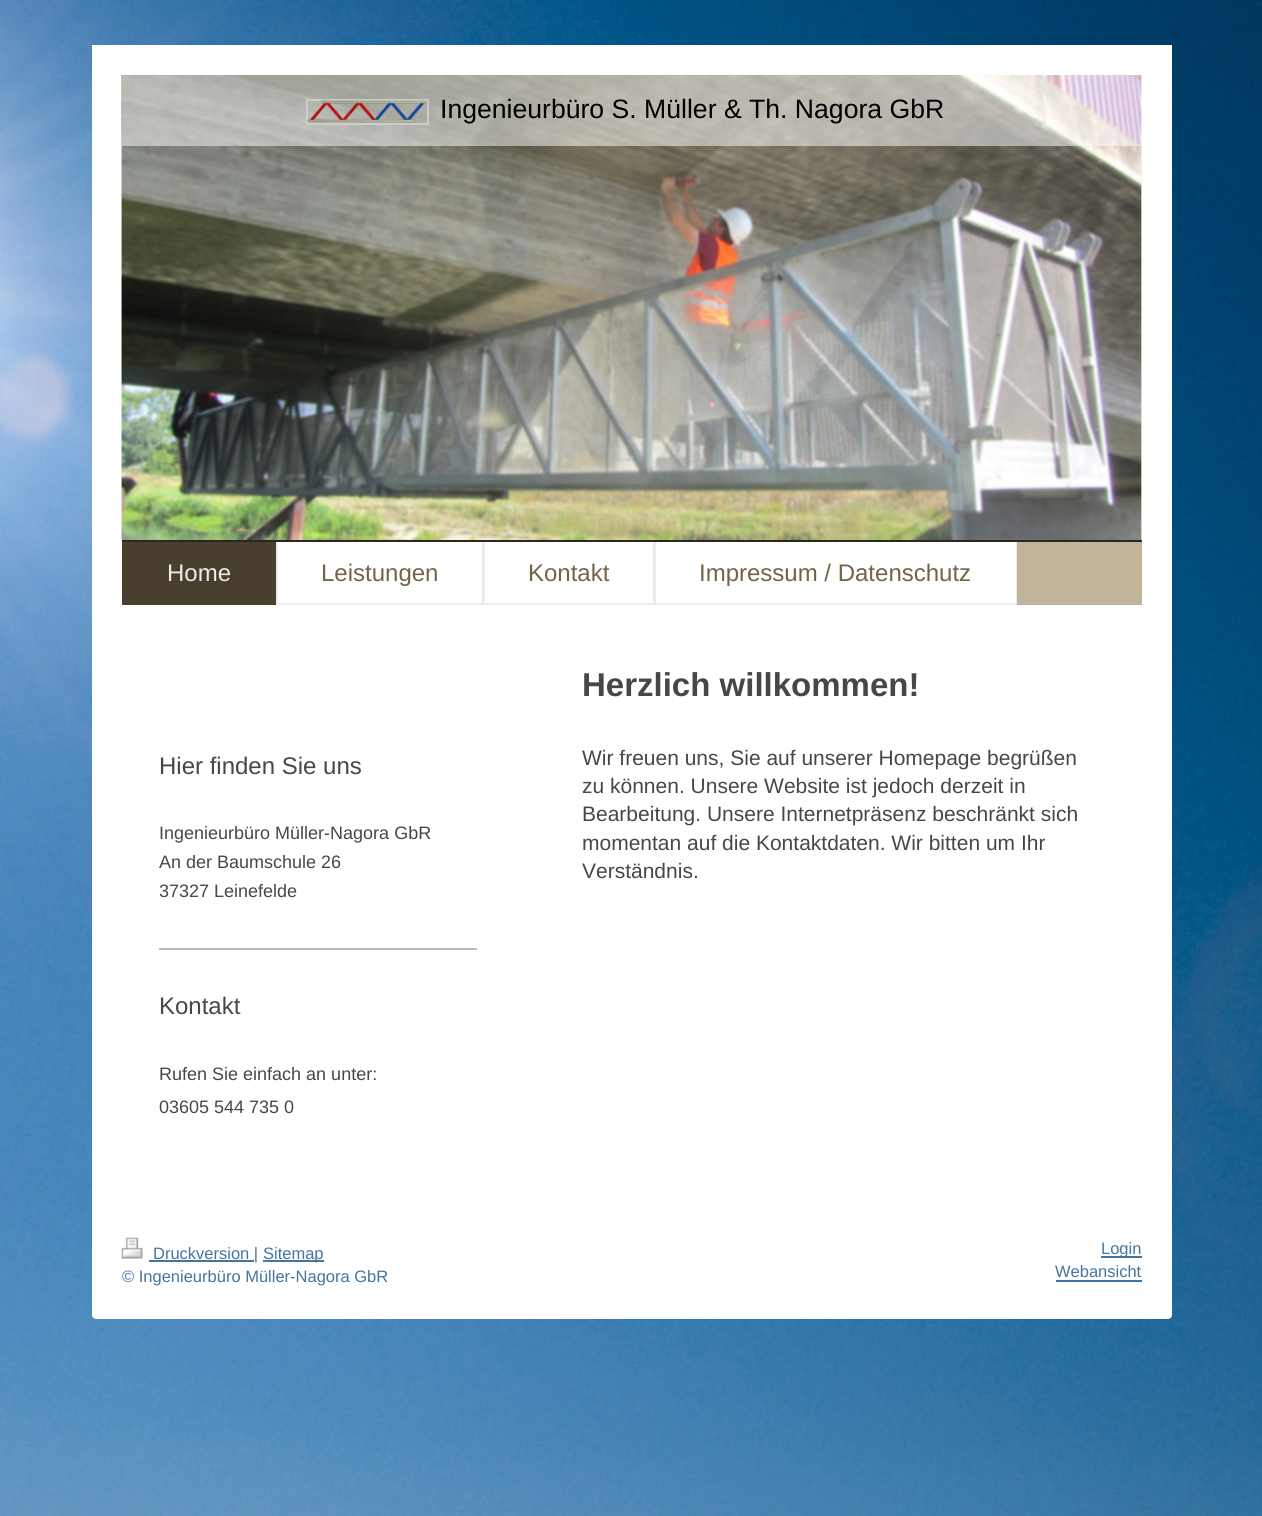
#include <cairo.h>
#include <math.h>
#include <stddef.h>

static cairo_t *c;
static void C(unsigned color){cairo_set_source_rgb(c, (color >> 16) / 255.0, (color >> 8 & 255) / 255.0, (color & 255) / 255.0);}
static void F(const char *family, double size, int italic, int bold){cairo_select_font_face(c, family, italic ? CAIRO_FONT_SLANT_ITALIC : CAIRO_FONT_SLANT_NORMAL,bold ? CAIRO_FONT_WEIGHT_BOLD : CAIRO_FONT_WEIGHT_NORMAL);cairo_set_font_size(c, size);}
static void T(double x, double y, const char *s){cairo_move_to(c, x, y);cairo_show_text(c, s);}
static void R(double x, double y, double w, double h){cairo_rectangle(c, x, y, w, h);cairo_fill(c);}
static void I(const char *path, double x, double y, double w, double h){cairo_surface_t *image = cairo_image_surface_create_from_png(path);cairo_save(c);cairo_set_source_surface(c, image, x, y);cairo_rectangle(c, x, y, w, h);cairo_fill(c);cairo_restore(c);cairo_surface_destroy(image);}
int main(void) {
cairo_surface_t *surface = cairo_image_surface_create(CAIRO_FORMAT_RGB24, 1262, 1516);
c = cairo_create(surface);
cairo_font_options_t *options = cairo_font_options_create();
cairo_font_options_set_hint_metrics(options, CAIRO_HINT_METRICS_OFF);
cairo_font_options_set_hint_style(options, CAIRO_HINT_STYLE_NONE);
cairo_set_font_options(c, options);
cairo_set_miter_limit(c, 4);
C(0xffffff);
cairo_paint(c);
I("1.png",0,0,1262,1516);
C(0xffffff);
cairo_new_path(c);
cairo_move_to(c,92,45);
cairo_line_to(c,1172,45);
cairo_line_to(c,1172,1314);
cairo_curve_to(c,1172,1317,1170,1319,1167,1319);
cairo_line_to(c,97,1319);
cairo_curve_to(c,94,1319,92,1317,92,1314);
cairo_close_path(c);
cairo_fill(c);
I("2.png",121,75,1,465);
C(0xeeeeee);
R(1141,75,1,465);
I("3.png",121,75,1021,465);
cairo_set_source_rgba(c,1,1,1,0.5);
R(122,75,1020,71);
cairo_rectangle(c,307,100,121,24);
C(0xcccccc);
cairo_stroke(c);
I("4.png",307,100,121,23);
F("Liberation Sans",26.6,0,0);
C(0x000000);
T(440,118,"Ingenieurbüro S. Müller & Th. Nagora GbR");
C(0xc2b49a);
R(1017,542,125,63);
C(0x2b261e);
R(122,540,1020,2);
C(0x483f2f);
R(122,542,154,63);
F("Liberation Sans",24,0,0);
C(0xedecea);
T(167,581,"Home");
R(276,542,741,63);
C(0xffffff);
R(278,542,204,61);
C(0x736449);
T(321,581,"Leistungen");
C(0xffffff);
R(485,542,168,61);
C(0x736449);
T(528,581,"Kontakt");
C(0xffffff);
R(656,542,360,61);
C(0x736449);
T(699,581,"Impressum / Datenschutz");
C(0x474747);
T(159,774,"Hier finden Sie uns");
F("Liberation Sans",18,0,0);
T(159,839,"Ingenieurbüro Müller-Nagora GbR");
T(159,868,"An der Baumschule 26");
T(159,897,"37327 Leinefelde");
C(0xbababa);
R(159,948,318,2);
F("Liberation Sans",24,0,0);
C(0x474747);
T(159,1014,"Kontakt");
F("Liberation Sans",18,0,0);
T(159,1080,"Rufen Sie einfach an unter:");
T(159,1113,"03605 544 735 0");
F("Liberation Sans",33,0,1);
T(582,696,"Herzlich willkommen!");
F("Liberation Sans",21,0,0);
T(582,765,"Wir freuen uns, Sie auf unserer Homepage begrüßen");
T(582,793,"zu können. Unsere Website ist jedoch derzeit in");
T(582,821,"Bearbeitung. Unsere Internetpräsenz beschränkt sich");
T(582,850,"momentan auf die Kontaktdaten. Wir bitten um Ihr");
T(582,878,"Verständnis.");
C(0xffffff);
cairo_new_path(c);
cairo_move_to(c,92,1208);
cairo_line_to(c,1172,1208);
cairo_line_to(c,1172,1314);
cairo_curve_to(c,1172,1317,1170,1319,1167,1319);
cairo_line_to(c,97,1319);
cairo_curve_to(c,94,1319,92,1317,92,1314);
cairo_close_path(c);
cairo_fill(c);
I("5.png",121,1237,22,22);
C(0x4375a0);
R(149,1260,105,2);
F("Liberation Sans",16.5,0,0);
T(153,1259,"Druckversion |");
R(263,1260,61,2);
T(263,1259,"Sitemap");
cairo_save(c);
cairo_rectangle(c,122,1238,1020,51);
cairo_clip(c);
T(122,1282,"© Ingenieurbüro Müller-Nagora GbR");
cairo_restore(c);
R(1101,1256,41,2);
T(1101,1254,"Login");
T(1055,1277,"Webansicht");
R(1056,1280,86,2);
cairo_surface_write_to_png(surface, "o.png");
cairo_font_options_destroy(options);
cairo_destroy(c);
cairo_surface_destroy(surface);
return 0;
}
